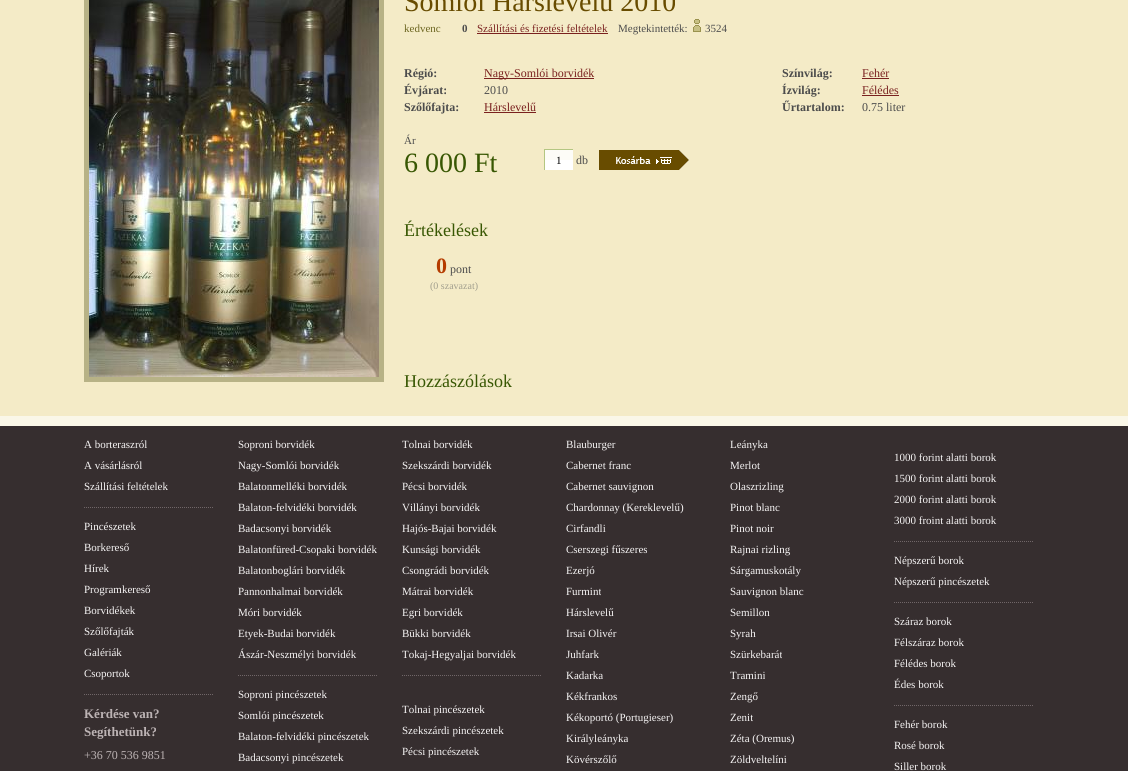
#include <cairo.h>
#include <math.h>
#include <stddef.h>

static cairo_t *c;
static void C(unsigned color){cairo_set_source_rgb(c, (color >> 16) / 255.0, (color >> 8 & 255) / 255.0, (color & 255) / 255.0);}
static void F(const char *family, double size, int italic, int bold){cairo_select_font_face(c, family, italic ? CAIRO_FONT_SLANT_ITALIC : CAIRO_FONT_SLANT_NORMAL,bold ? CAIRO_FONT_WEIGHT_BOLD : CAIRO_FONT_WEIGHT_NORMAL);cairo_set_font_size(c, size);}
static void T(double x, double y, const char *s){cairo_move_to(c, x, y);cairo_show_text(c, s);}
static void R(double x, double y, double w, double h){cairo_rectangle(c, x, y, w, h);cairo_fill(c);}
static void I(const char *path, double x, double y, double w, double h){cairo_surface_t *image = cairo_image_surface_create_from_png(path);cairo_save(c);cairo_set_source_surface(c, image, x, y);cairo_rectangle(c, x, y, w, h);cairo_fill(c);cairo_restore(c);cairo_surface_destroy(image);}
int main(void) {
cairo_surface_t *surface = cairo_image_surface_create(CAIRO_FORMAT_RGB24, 1128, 771);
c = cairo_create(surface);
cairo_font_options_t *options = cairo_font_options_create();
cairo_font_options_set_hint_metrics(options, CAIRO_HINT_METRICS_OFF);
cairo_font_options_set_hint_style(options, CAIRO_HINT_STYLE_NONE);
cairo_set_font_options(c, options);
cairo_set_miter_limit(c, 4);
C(0xfaf7e8);
cairo_paint(c);
C(0xf4ebc7);
R(0,0,1128,416);
cairo_rectangle(c,86.5,-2.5,295,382);
C(0xb7b286);
cairo_set_line_width(c,5);
cairo_stroke(c);
I("1.png",89,0,290,377);
F("Liberation Serif",28,0,0);
C(0x684c00);
T(404,11,"Somlói Hárslevelű 2010");
F("Liberation Serif",11,0,0);
C(0x6d6621);
T(404,32,"kedvenc");
F("Liberation Serif",11,0,1);
C(0x4c4c4c);
T(462,32,"0");
F("Liberation Serif",11,0,0);
C(0x7a211f);
T(477,32,"Szállítási és fizetési feltételek");
R(477,33,131,1);
C(0x4c4c4c);
T(618,32,"Megtekintették:");
I("2.png",693,19,8,13);
T(705,32,"3524");
F("Liberation Serif",12,0,1);
T(404,77,"Régió:");
C(0x7a211f);
R(484,78,110,1);
F("Liberation Serif",12,0,0);
T(484,77,"Nagy-Somlói borvidék");
F("Liberation Serif",12,0,1);
C(0x4c4c4c);
T(404,94,"Évjárat:");
F("Liberation Serif",12,0,0);
T(484,94,"2010");
F("Liberation Serif",12,0,1);
T(404,111,"Szőlőfajta:");
F("Liberation Serif",12,0,0);
C(0x7a211f);
T(484,111,"Hárslevelű");
R(484,112,52,1);
F("Liberation Serif",12,0,1);
C(0x4c4c4c);
T(782,77,"Színvilág:");
F("Liberation Serif",12,0,0);
C(0x7a211f);
T(862,77,"Fehér");
R(862,78,27,1);
F("Liberation Serif",12,0,1);
C(0x4c4c4c);
T(782,94,"Ízvilág:");
F("Liberation Serif",12,0,0);
C(0x7a211f);
T(862,94,"Félédes");
R(862,95,37,1);
F("Liberation Serif",12,0,1);
C(0x4c4c4c);
T(782,111,"Űrtartalom:");
F("Liberation Serif",12,0,0);
T(862,111,"0.75 liter");
F("Liberation Serif",11,0,0);
T(404,144,"Ár");
F("Liberation Serif",28,0,0);
C(0x385703);
T(404,172,"6 000 Ft");
C(0xffffff);
R(545,160,28,10);
C(0xfdfcf7);
R(545,150,28,10);
C(0xb4c682);
R(544,149,29,1);
R(544,149,1,21);
F("Liberation Serif",11,0,0);
C(0x000000);
T(556,164,"1");
F("Liberation Serif",12,0,0);
C(0x4c4c4c);
T(576,164,"db");
I("3.png",599,150,90,20);
F("Liberation Serif",18,0,0);
C(0x385703);
T(404,236,"Értékelések");
F("Liberation Serif",22,0,1);
C(0xb53c00);
T(436,273,"0");
F("Liberation Serif",12,0,0);
C(0x4c4c4c);
T(450,273,"pont");
F("Liberation Serif",10,0,0);
C(0xa19e8d);
T(430,289,"(0 szavazat)");
F("Liberation Serif",18,0,0);
C(0x385703);
T(404,387,"Hozzászólások");
C(0x362e2f);
R(0,426,1128,345);
cairo_new_path(c);
cairo_move_to(c,84,507.5);
cairo_line_to(c,214,507.5);
C(0x706668);
cairo_set_line_width(c,1);
cairo_set_dash(c,(double[]){1,1},2,0);
cairo_stroke(c);
F("Liberation Serif",11,0,0);
C(0xf6f4f4);
T(84,448,"A borteraszról");
T(84,469,"A vásárlásról");
T(84,490,"Szállítási feltételek");
cairo_new_path(c);
cairo_move_to(c,84,694.5);
cairo_line_to(c,214,694.5);
C(0x706668);
cairo_stroke(c);
C(0xf6f4f4);
T(84,530,"Pincészetek");
T(84,551,"Borkereső");
T(84,572,"Hírek");
T(84,593,"Programkereső");
T(84,614,"Borvidékek");
T(84,635,"Szőlőfajták");
T(84,656,"Galériák");
T(84,677,"Csoportok");
F("Liberation Serif",13,0,1);
C(0xbcb3b4);
T(84,718,"Kérdése van?");
T(84,736,"Segíthetünk?");
F("Liberation Serif",12,0,0);
T(84,759,"+36 70 536 9851");
cairo_new_path(c);
cairo_move_to(c,238,675.5);
cairo_line_to(c,378,675.5);
C(0x706668);
cairo_stroke(c);
F("Liberation Serif",11,0,0);
C(0xf6f4f4);
T(238,448,"Soproni borvidék");
T(238,469,"Nagy-Somlói borvidék");
T(238,490,"Balatonmelléki borvidék");
T(238,511,"Balaton-felvidéki borvidék");
T(238,532,"Badacsonyi borvidék");
T(238,553,"Balatonfüred-Csopaki borvidék");
T(238,574,"Balatonboglári borvidék");
T(238,595,"Pannonhalmai borvidék");
T(238,616,"Móri borvidék");
T(238,637,"Etyek-Budai borvidék");
T(238,658,"Ászár-Neszmélyi borvidék");
T(238,698,"Soproni pincészetek");
T(238,719,"Somlói pincészetek");
T(238,740,"Balaton-felvidéki pincészetek");
T(238,761,"Badacsonyi pincészetek");
cairo_new_path(c);
cairo_move_to(c,402,675.5);
cairo_line_to(c,542,675.5);
C(0x706668);
cairo_stroke(c);
C(0xf6f4f4);
T(402,448,"Tolnai borvidék");
T(402,469,"Szekszárdi borvidék");
T(402,490,"Pécsi borvidék");
T(402,511,"Villányi borvidék");
T(402,532,"Hajós-Bajai borvidék");
T(402,553,"Kunsági borvidék");
T(402,574,"Csongrádi borvidék");
T(402,595,"Mátrai borvidék");
T(402,616,"Egri borvidék");
T(402,637,"Bükki borvidék");
T(402,658,"Tokaj-Hegyaljai borvidék");
T(402,713,"Tolnai pincészetek");
T(402,734,"Szekszárdi pincészetek");
T(402,755,"Pécsi pincészetek");
T(566,448,"Blauburger");
T(566,469,"Cabernet franc");
T(566,490,"Cabernet sauvignon");
T(566,511,"Chardonnay (Kereklevelű)");
T(566,532,"Cirfandli");
T(566,553,"Cserszegi fűszeres");
T(566,574,"Ezerjó");
T(566,595,"Furmint");
T(566,616,"Hárslevelű");
T(566,637,"Irsai Olivér");
T(566,658,"Juhfark");
T(566,679,"Kadarka");
T(566,700,"Kékfrankos");
T(566,721,"Kékoportó (Portugieser)");
T(566,742,"Királyleányka");
T(566,763,"Kövérszőlő");
T(730,448,"Leányka");
T(730,469,"Merlot");
T(730,490,"Olaszrizling");
T(730,511,"Pinot blanc");
T(730,532,"Pinot noir");
T(730,553,"Rajnai rizling");
T(730,574,"Sárgamuskotály");
T(730,595,"Sauvignon blanc");
T(730,616,"Semillon");
T(730,637,"Syrah");
T(730,658,"Szürkebarát");
T(730,679,"Tramini");
T(730,700,"Zengő");
T(730,721,"Zenit");
T(730,742,"Zéta (Oremus)");
T(730,763,"Zöldveltelíni");
cairo_new_path(c);
cairo_move_to(c,894,541.5);
cairo_line_to(c,1034,541.5);
C(0x706668);
cairo_stroke(c);
C(0xf6f4f4);
T(894,461,"1000 forint alatti borok");
T(894,482,"1500 forint alatti borok");
T(894,503,"2000 forint alatti borok");
T(894,524,"3000 froint alatti borok");
cairo_new_path(c);
cairo_move_to(c,894,602.5);
cairo_line_to(c,1034,602.5);
C(0x706668);
cairo_stroke(c);
C(0xf6f4f4);
T(894,564,"Népszerű borok");
T(894,585,"Népszerű pincészetek");
cairo_new_path(c);
cairo_move_to(c,894,705.5);
cairo_line_to(c,1034,705.5);
C(0x706668);
cairo_stroke(c);
C(0xf6f4f4);
T(894,625,"Száraz borok");
T(894,646,"Félszáraz borok");
T(894,667,"Félédes borok");
T(894,688,"Édes borok");
T(894,728,"Fehér borok");
T(894,749,"Rosé borok");
T(894,770,"Siller borok");
cairo_surface_write_to_png(surface, "o.png");
cairo_font_options_destroy(options);
cairo_destroy(c);
cairo_surface_destroy(surface);
return 0;
}
